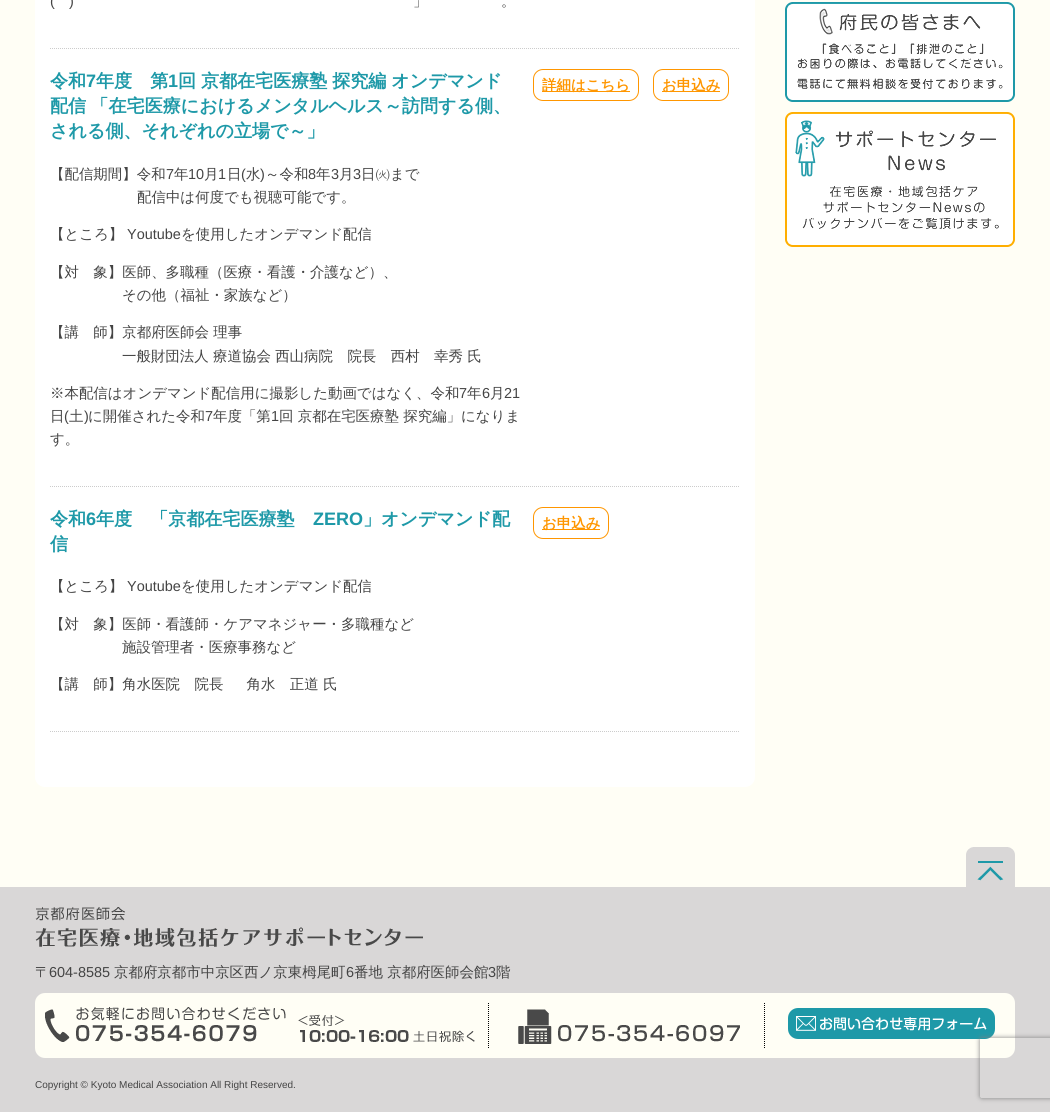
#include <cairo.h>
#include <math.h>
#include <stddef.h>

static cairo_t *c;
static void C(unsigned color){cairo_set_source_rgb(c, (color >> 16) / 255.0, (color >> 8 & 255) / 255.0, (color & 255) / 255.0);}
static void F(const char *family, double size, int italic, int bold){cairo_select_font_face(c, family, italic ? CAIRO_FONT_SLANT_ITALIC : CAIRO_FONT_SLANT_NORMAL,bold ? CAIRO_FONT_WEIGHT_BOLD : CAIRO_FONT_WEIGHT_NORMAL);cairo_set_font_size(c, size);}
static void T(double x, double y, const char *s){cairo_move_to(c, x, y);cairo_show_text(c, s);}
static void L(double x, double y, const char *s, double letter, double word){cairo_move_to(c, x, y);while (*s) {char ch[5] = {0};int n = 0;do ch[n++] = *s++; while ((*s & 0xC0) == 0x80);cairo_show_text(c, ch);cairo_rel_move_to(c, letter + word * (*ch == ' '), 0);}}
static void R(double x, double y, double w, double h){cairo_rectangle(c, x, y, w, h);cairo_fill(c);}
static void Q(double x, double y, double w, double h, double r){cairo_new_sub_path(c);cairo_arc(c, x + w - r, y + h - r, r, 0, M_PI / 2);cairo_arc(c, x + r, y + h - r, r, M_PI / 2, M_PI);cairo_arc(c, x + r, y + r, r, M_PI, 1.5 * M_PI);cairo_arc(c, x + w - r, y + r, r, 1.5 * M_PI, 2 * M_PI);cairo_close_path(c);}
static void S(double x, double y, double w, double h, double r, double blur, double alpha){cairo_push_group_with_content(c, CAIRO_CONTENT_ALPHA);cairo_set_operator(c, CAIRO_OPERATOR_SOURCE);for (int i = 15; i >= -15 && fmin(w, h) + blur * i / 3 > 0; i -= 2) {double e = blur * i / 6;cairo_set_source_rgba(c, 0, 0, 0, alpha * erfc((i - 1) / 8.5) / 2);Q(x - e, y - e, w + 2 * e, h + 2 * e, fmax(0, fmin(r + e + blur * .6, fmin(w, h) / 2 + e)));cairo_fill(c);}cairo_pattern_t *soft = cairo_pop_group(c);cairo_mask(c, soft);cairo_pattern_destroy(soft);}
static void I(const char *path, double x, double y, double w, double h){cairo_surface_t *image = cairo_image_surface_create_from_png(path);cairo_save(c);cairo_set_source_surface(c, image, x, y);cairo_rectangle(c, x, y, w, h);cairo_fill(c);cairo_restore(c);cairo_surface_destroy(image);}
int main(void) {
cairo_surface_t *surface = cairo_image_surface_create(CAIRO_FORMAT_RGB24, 1050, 1112);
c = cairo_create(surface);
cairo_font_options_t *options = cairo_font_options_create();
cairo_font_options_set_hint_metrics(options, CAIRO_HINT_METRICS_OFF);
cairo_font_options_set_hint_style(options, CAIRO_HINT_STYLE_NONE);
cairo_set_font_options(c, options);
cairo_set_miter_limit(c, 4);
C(0xfffef5);
cairo_paint(c);
C(0xffffff);
Q(35,-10,720,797,10);
cairo_fill(c);
cairo_new_path(c);
cairo_move_to(c,50,48.5);
cairo_line_to(c,740,48.5);
C(0xcccccc);
cairo_set_line_width(c,1);
cairo_set_dash(c,(double[]){1,1},2,0);
cairo_stroke(c);
F("Liberation Sans",14.45,0,0);
C(0x444444);
T(50,6,"(");
T(69,6,")");
F("WenQuanYi Zen Hei Medium",14.45,0,0);
T(413,6,"」");
T(501,6,"。");
cairo_new_path(c);
cairo_move_to(c,50,486.5);
cairo_line_to(c,740,486.5);
C(0xcccccc);
cairo_stroke(c);
F("WenQuanYi Zen Hei",18.05,0,1);
C(0x1e99a8);
T(50,87,"令和");
F("Liberation Sans",18.05,0,1);
T(86,87,"7");
F("WenQuanYi Zen Hei",18.05,0,1);
T(96,87,"年度　第");
F("Liberation Sans",18.05,0,1);
T(168,87,"1");
F("WenQuanYi Zen Hei",18.05,0,1);
L(178,87,"回 京都在宅医療塾 探究編 オンデマンド",0,-.5);
L(50,112,"配信 「在宅医療におけるメンタルヘルス～訪問する側、",0,-1);
T(50,137,"される側、それぞれの立場で～」");
F("WenQuanYi Zen Hei Medium",14.45,0,0);
C(0x444444);
T(50,179,"【配信期間】令和");
F("Liberation Sans",14.45,0,0);
T(166,179,"7");
F("WenQuanYi Zen Hei Medium",14.45,0,0);
T(174,179,"年");
F("Liberation Sans",14.45,0,0);
T(188,179,"10");
F("WenQuanYi Zen Hei Medium",14.45,0,0);
T(204,179,"月");
F("Liberation Sans",14.45,0,0);
T(218,179,"1");
F("WenQuanYi Zen Hei Medium",14.45,0,0);
T(227,179,"日");
F("Liberation Sans",14.45,0,0);
T(241,179,"(");
F("WenQuanYi Zen Hei Medium",14.45,0,0);
T(246,179,"水");
F("Liberation Sans",14.45,0,0);
T(260,179,")");
F("WenQuanYi Zen Hei Medium",14.45,0,0);
T(265,179,"～令和");
F("Liberation Sans",14.45,0,0);
T(308,179,"8");
F("WenQuanYi Zen Hei Medium",14.45,0,0);
T(316,179,"年");
F("Liberation Sans",14.45,0,0);
T(331,179,"3");
F("WenQuanYi Zen Hei Medium",14.45,0,0);
T(339,179,"月");
F("Liberation Sans",14.45,0,0);
T(353,179,"3");
F("WenQuanYi Zen Hei Medium",14.45,0,0);
T(361,179,"日㈫まで");
T(137,202,"配信中は何度でも視聴可能です。");
T(50,239,"【ところ】");
F("Liberation Sans",14.45,0,0);
T(127,239,"Youtube");
F("WenQuanYi Zen Hei Medium",14.45,0,0);
T(181,239,"を使用したオンデマンド配信");
T(50,277,"【対　象】医師、多職種（医療・看護・介護など）、");
T(122,300,"その他（福祉・家族など）");
T(50,337,"【講　師】京都府医師会 理事");
T(122,361,"一般財団法人 療道協会 西山病院　院長　西村　幸秀 氏");
T(50,398,"※本配信はオンデマンド配信用に撮影した動画ではなく、令和");
F("Liberation Sans",14.45,0,0);
T(459,398,"7");
F("WenQuanYi Zen Hei Medium",14.45,0,0);
T(467,398,"年");
F("Liberation Sans",14.45,0,0);
T(482,398,"6");
F("WenQuanYi Zen Hei Medium",14.45,0,0);
T(490,398,"月");
F("Liberation Sans",14.45,0,0);
T(504,398,"21");
F("WenQuanYi Zen Hei Medium",14.45,0,0);
T(50,421,"日");
F("Liberation Sans",14.45,0,0);
T(64,421,"(");
F("WenQuanYi Zen Hei Medium",14.45,0,0);
T(69,421,"土");
F("Liberation Sans",14.45,0,0);
T(84,421,")");
F("WenQuanYi Zen Hei Medium",14.45,0,0);
T(88,421,"に開催された令和");
F("Liberation Sans",14.45,0,0);
T(205,421,"7");
F("WenQuanYi Zen Hei Medium",14.45,0,0);
T(213,421,"年度「第");
F("Liberation Sans",14.45,0,0);
T(271,421,"1");
F("WenQuanYi Zen Hei Medium",14.45,0,0);
T(279,421,"回 京都在宅医療塾 探究編」になりま");
T(50,444,"す。");
Q(533.5,69.5,105,31,9.5);
C(0xff9600);
cairo_set_dash(c,NULL,0,0);
cairo_stroke(c);
R(542,91,88,1);
F("WenQuanYi Zen Hei",14.45,0,1);
T(542,90,"詳細はこちら");
Q(653.5,69.5,75,31,9.5);
cairo_stroke(c);
R(662,91,58,1);
T(662,90,"お申込み");
cairo_new_path(c);
cairo_move_to(c,50,731.5);
cairo_line_to(c,740,731.5);
C(0xcccccc);
cairo_set_dash(c,(double[]){1,1},2,0);
cairo_stroke(c);
F("WenQuanYi Zen Hei",18.05,0,1);
C(0x1e99a8);
T(50,525,"令和");
F("Liberation Sans",18.05,0,1);
T(86,525,"6");
F("WenQuanYi Zen Hei",18.05,0,1);
T(96,525,"年度　「京都在宅医療塾");
F("Liberation Sans",18.05,0,1);
T(313,525,"ZERO");
F("WenQuanYi Zen Hei",18.05,0,1);
T(363,525,"」オンデマンド配");
T(50,550,"信");
F("WenQuanYi Zen Hei Medium",14.45,0,0);
C(0x444444);
T(50,591,"【ところ】");
F("Liberation Sans",14.45,0,0);
T(127,591,"Youtube");
F("WenQuanYi Zen Hei Medium",14.45,0,0);
T(181,591,"を使用したオンデマンド配信");
T(50,629,"【対　象】医師・看護師・ケアマネジャー・多職種など");
T(122,652,"施設管理者・医療事務など");
T(50,689,"【講　師】角水医院　院長 　 角水　正道 氏");
Q(533.5,507.5,75,31,9.5);
C(0xff9600);
cairo_set_dash(c,NULL,0,0);
cairo_stroke(c);
R(542,529,58,1);
F("WenQuanYi Zen Hei",14.45,0,1);
T(542,528,"お申込み");
I("1.png",785,2,230,100);
I("2.png",785,112,230,135);
C(0xd9d7d7);
R(0,887,1050,225);
I("3.png",966,847,49,40);
I("4.png",35,907,388,40);
F("WenQuanYi Zen Hei Medium",14.45,0,0);
C(0x444444);
T(35,977,"〒");
F("Liberation Sans",14.45,0,0);
T(49,977,"604-8585");
F("WenQuanYi Zen Hei Medium",14.45,0,0);
T(114,977,"京都府京都市中京区西ノ京東栂尾町");
F("Liberation Sans",14.45,0,0);
T(346,977,"6");
F("WenQuanYi Zen Hei Medium",14.45,0,0);
T(354,977,"番地 京都府医師会館");
F("Liberation Sans",14.45,0,0);
T(488,977,"3");
F("WenQuanYi Zen Hei Medium",14.45,0,0);
T(496,977,"階");
C(0xfffef5);
Q(35,993,980,65,10);
cairo_fill(c);
I("5.png",45,1003,444,45);
I("6.png",518,1003,247,45);
C(0x1e99a8);
Q(788,1008,207,31,10);
cairo_fill(c);
I("7.png",796,1016,191,15);
F("Liberation Sans",10,0,0);
C(0x444444);
T(35,1088,"Copyright © Kyoto Medical Association All Right Reserved.");
cairo_save(c);
cairo_set_fill_rule(c,CAIRO_FILL_RULE_EVEN_ODD);
cairo_new_path(c);
cairo_move_to(c,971,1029);
cairo_line_to(c,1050,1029);
cairo_line_to(c,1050,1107);
cairo_line_to(c,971,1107);
cairo_close_path(c);
cairo_move_to(c,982,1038);
cairo_line_to(c,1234,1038);
cairo_curve_to(c,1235,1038,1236,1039,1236,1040);
cairo_line_to(c,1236,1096);
cairo_curve_to(c,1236,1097,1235,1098,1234,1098);
cairo_line_to(c,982,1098);
cairo_curve_to(c,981,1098,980,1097,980,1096);
cairo_line_to(c,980,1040);
cairo_curve_to(c,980,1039,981,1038,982,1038);
cairo_close_path(c);
cairo_clip(c);
C(0x808080);
S(980,1038,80,60,2,2.5,1);
cairo_restore(c);
cairo_surface_write_to_png(surface, "o.png");
cairo_font_options_destroy(options);
cairo_destroy(c);
cairo_surface_destroy(surface);
return 0;
}
